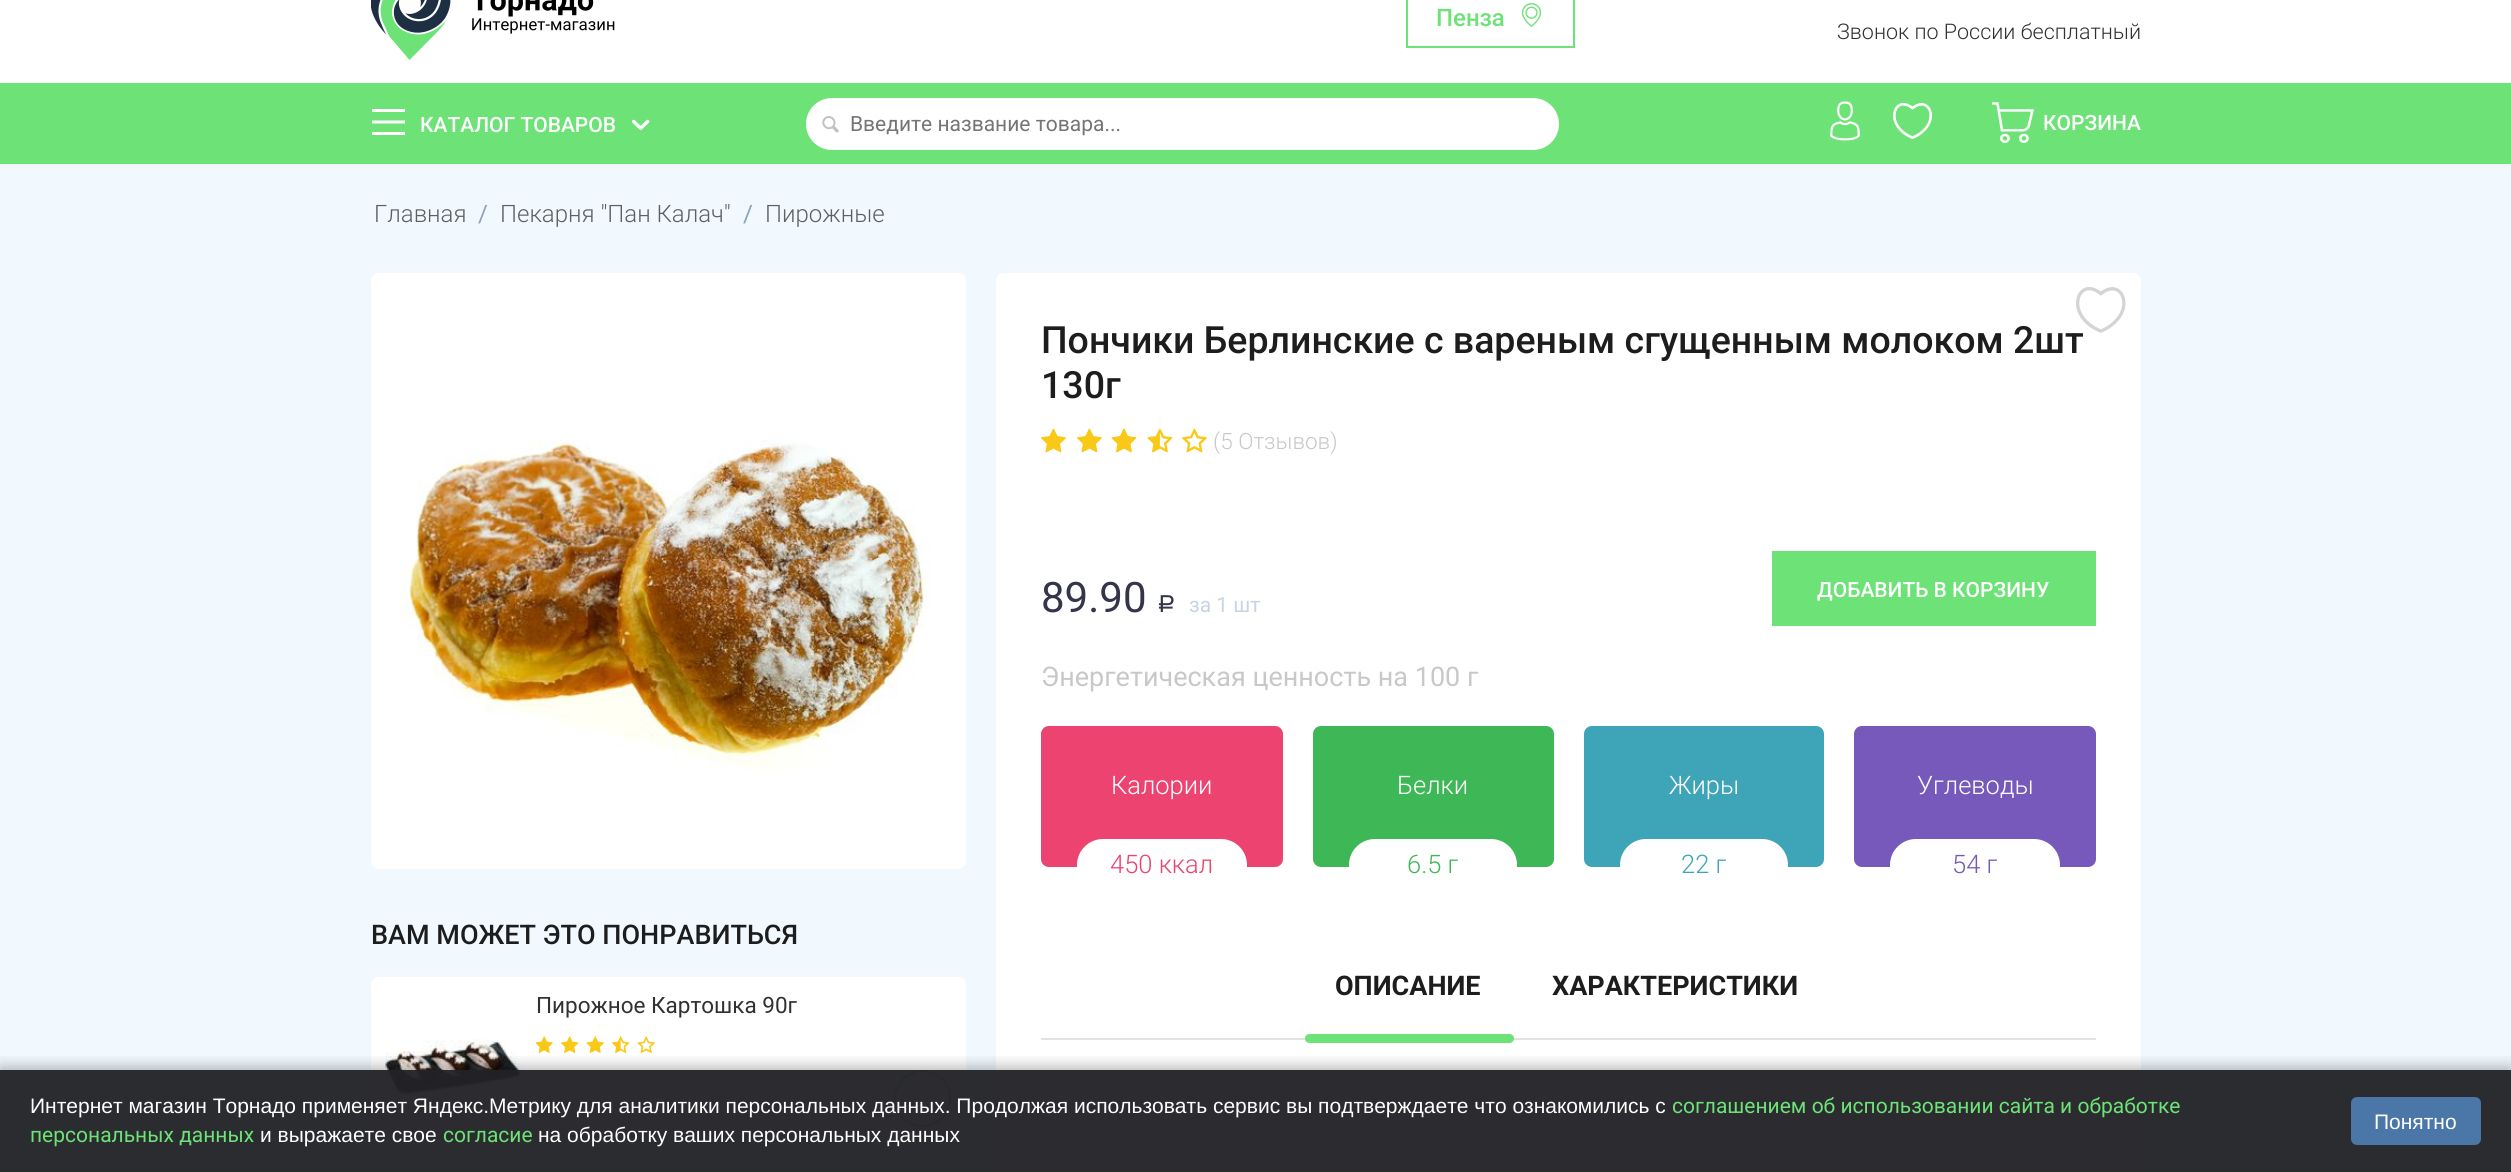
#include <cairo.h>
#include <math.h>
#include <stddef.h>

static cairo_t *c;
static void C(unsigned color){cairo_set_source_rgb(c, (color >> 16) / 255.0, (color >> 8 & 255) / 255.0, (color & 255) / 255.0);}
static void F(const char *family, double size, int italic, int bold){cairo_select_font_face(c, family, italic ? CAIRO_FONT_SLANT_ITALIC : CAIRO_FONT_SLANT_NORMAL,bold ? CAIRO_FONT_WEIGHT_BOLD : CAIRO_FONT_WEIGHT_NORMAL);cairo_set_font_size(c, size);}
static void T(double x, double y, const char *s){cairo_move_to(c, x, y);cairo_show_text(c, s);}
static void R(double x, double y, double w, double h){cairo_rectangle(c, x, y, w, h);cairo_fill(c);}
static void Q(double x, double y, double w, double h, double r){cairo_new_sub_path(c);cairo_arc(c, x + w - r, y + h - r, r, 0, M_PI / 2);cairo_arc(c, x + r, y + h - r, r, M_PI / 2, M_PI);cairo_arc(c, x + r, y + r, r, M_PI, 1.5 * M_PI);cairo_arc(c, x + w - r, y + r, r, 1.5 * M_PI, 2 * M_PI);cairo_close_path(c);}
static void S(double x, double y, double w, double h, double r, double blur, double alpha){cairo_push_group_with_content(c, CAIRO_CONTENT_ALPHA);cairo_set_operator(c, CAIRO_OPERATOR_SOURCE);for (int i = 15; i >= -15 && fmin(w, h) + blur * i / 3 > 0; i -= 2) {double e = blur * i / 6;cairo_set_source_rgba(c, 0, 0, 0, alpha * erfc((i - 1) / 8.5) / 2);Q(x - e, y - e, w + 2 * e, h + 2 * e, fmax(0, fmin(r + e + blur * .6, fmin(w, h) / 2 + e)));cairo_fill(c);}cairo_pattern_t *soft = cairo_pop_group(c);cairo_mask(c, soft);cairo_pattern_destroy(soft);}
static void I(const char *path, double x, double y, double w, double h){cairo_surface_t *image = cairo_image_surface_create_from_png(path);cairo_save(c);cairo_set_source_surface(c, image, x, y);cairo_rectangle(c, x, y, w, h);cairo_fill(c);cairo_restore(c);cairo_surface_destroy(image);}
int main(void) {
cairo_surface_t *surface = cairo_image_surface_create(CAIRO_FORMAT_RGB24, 2511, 1172);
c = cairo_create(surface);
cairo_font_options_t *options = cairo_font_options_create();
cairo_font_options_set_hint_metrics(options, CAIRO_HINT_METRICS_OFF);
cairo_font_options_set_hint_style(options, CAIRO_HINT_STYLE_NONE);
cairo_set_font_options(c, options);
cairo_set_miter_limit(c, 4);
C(0xffffff);
cairo_paint(c);
I("1.png",371,0,244,60);
cairo_rectangle(c,1407,-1,167,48);
C(0x6ce277);
cairo_stroke(c);
F("Roboto Medium",24,0,0);
T(1436,26,"Пенза");
I("2.png",1521,3,21,24);
F("Roboto Light",21.5,0,0);
C(0x313131);
T(1837,39,"Звонок по России бесплатный");
C(0x6ce277);
R(0,83,2511,81);
C(0xffffff);
cairo_new_path(c);
cairo_move_to(c,372,109);
cairo_line_to(c,405,109);
cairo_line_to(c,405,112);
cairo_line_to(c,372,112);
cairo_close_path(c);
cairo_move_to(c,372,120.5);
cairo_line_to(c,405,120.5);
cairo_line_to(c,405,123.5);
cairo_line_to(c,372,123.5);
cairo_close_path(c);
cairo_move_to(c,372,132);
cairo_line_to(c,405,132);
cairo_line_to(c,405,135);
cairo_line_to(c,372,135);
cairo_close_path(c);
cairo_fill(c);
F("Roboto Medium",21,0,0);
T(420,132,"КАТАЛОГ ТОВАРОВ");
I("3.png",632,119,18,11);
Q(806,98,753,52,26);
cairo_fill(c);
I("4.png",822,116,17,17);
F("Roboto",21,0,0);
C(0x757575);
T(850,131,"Введите название товара...");
I("5.png",1830,101,30,40);
I("6.png",1893,102,39,37);
I("7.png",1992,102,42,41);
F("Roboto Medium",21,0,0);
C(0xffffff);
T(2043,130,"КОРЗИНА");
C(0xf1f9ff);
R(0,164,2511,1008);
F("Roboto Light",24,0,0);
C(0x606060);
T(374,222,"Главная");
F("Roboto",24,0,0);
C(0x8ca3ba);
T(478,222,"/");
F("Roboto Light",24,0,0);
C(0x606060);
T(500,222,"Пекарня \"Пан Калач\"");
F("Roboto",24,0,0);
C(0x8ca3ba);
T(743,222,"/");
F("Roboto Light",24,0,0);
C(0x606060);
T(765,222,"Пирожные");
C(0xffffff);
Q(371,273,595,596,8);
cairo_fill(c);
I("8.png",400,440,533,332);
F("Roboto Medium",27,0,0);
C(0x1d1d1d);
T(371,944,"ВАМ МОЖЕТ ЭТО ПОНРАВИТЬСЯ");
C(0xffffff);
Q(371,977,595,165,8);
cairo_fill(c);
F("Roboto",22.5,0,0);
C(0x313131);
T(536,1013,"Пирожное Картошка 90г");
I("9.png",535,1036,18,17);
I("10.png",561,1036,18,17);
I("9.png",586,1036,18,17);
I("11.png",612,1036,18,17);
I("12.png",637,1036,18,17);
cairo_arc(c,922.5,1098.5,27.5,0,2 * M_PI);
C(0x6ce277);
cairo_stroke(c);
I("13.png",385,1039,136,60);
C(0xffffff);
Q(996,273,1145,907,8);
cairo_fill(c);
F("Roboto Medium",37.5,0,0);
C(0x1d1d1d);
T(1041,353,"Пончики Берлинские с вареным сгущенным молоком 2шт");
T(1041,398,"130г");
I("14.png",1041,428,25,25);
I("14.png",1077,428,25,25);
I("15.png",1111,428,26,25);
I("16.png",1147,428,26,25);
I("17.png",1182,428,25,25);
F("Roboto Light",22.5,0,0);
C(0xc8c8c8);
T(1213,449,"(5 Отзывов)");
F("Roboto",42,0,0);
C(0x34354b);
T(1041,612,"89.90");
F("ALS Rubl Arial",24,0,0);
T(1157,612,"Р");
F("Roboto",21,0,0);
C(0xc8d4e4);
T(1189,612,"за 1 шт");
I("18.png",2076,287,50,46);
C(0x6ce277);
R(1772,551,324,75);
F("Roboto Medium",21,0,0);
C(0xffffff);
T(1817,597,"ДОБАВИТЬ В КОРЗИНУ");
F("Roboto",27,0,0);
C(0xc8c8c8);
T(1041,686,"Энергетическая ценность на 100 г");
C(0xec4371);
Q(1041,726,242,141,8);
cairo_fill(c);
F("Roboto Light",25.5,0,0);
C(0xffffff);
T(1111,794,"Калории");
Q(1077,839,170,52,26);
cairo_fill(c);
C(0xec4371);
T(1110,873,"450 ккал");
C(0x3eb856);
Q(1313,726,241,141,8);
cairo_fill(c);
C(0xffffff);
T(1397,794,"Белки");
Q(1349,839,168,52,26);
cairo_fill(c);
C(0x3eb856);
T(1407,873,"6.5 г");
C(0x3ea4b8);
Q(1584,726,240,141,8);
cairo_fill(c);
C(0xffffff);
T(1669,794,"Жиры");
Q(1620,839,168,52,26);
cairo_fill(c);
C(0x3ea4b8);
T(1681,873,"22 г");
C(0x7659bb);
Q(1854,726,242,141,8);
cairo_fill(c);
C(0xffffff);
T(1917,794,"Углеводы");
Q(1890,839,170,52,26);
cairo_fill(c);
C(0x7659bb);
T(1952,873,"54 г");
C(0xe2e2e2);
R(1041,1038,1055,2);
F("Roboto",27,0,1);
C(0x1d1d1d);
T(1335,995,"ОПИСАНИЕ");
T(1552,995,"ХАРАКТЕРИСТИКИ");
C(0x6ce277);
Q(1305,1034,209,9,4.5);
cairo_fill(c);
cairo_save(c);
cairo_rectangle(c,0,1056,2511,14);
cairo_clip(c);
C(0x000000);
S(0,1067,2511,103,0,7.5,.3);
cairo_restore(c);
cairo_set_source_rgba(c,0.133,0.133,0.149,0.95);
R(0,1070,2511,102);
F("Liberation Sans",21,0,0);
C(0xffffff);
T(30,1113,"Интернет магазин Торнадо применяет Яндекс.Метрику для аналитики персональных данных. Продолжая использовать сервис вы подтверждаете что ознакомились с");
F("Roboto",21,0,0);
C(0x6ce277);
T(1672,1113,"соглашением об использовании сайта и обработке");
T(30,1142,"персональных данных");
F("Liberation Sans",21,0,0);
C(0xffffff);
T(260,1142,"и выражаете свое");
F("Roboto",21,0,0);
C(0x6ce277);
T(443,1142,"согласие");
F("Liberation Sans",21,0,0);
C(0xffffff);
T(538,1142,"на обработку ваших персональных данных");
C(0x4a76a8);
Q(2351,1097,130,48,6);
cairo_fill(c);
C(0xffffff);
T(2374,1129,"Понятно");
cairo_surface_write_to_png(surface, "o.png");
cairo_font_options_destroy(options);
cairo_destroy(c);
cairo_surface_destroy(surface);
return 0;
}
